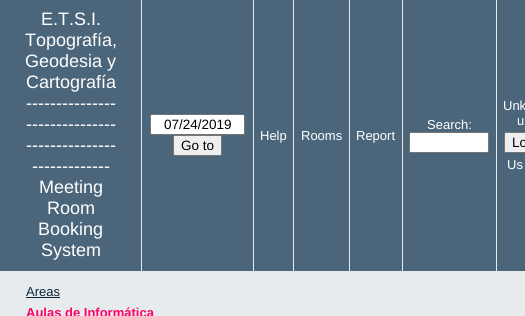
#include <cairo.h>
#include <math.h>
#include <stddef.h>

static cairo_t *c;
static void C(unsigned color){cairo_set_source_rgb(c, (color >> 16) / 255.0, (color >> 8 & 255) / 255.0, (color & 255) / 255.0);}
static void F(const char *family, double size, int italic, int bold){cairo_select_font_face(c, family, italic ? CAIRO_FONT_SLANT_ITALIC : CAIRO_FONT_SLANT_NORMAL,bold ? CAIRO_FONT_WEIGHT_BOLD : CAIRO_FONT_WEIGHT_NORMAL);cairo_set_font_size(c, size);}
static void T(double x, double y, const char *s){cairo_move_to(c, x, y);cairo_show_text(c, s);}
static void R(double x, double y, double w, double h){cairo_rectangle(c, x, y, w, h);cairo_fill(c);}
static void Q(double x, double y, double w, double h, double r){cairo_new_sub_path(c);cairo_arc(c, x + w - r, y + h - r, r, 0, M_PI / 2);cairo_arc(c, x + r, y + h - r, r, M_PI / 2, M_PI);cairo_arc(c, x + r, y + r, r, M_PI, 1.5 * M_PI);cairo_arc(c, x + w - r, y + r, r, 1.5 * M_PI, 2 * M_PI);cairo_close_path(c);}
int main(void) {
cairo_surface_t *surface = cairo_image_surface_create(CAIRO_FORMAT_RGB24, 525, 316);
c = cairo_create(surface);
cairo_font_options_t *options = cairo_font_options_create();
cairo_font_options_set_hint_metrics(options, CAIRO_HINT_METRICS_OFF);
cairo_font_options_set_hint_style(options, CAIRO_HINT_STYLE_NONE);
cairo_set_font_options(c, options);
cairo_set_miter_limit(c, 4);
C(0xe7ebee);
cairo_paint(c);
C(0x4b667b);
R(0,0,525,271);
F("Liberation Sans",18,0,0);
C(0xffffff);
T(41,25,"E.T.S.I.");
T(25,46,"Topografía,");
T(25,67,"Geodesia y");
T(26,88,"Cartografía");
T(26,109,"---------------");
T(26,130,"---------------");
T(26,151,"---------------");
T(32,172,"-------------");
T(39,193,"Meeting");
T(47,214,"Room");
T(38,235,"Booking");
T(41,256,"System");
C(0xe7ebee);
R(141,0,1,271);
C(0xffffff);
Q(150.5,114.5,94,20,1.5);
cairo_fill_preserve(c);
C(0x767676);
cairo_set_line_width(c,1);
cairo_stroke(c);
F("Liberation Sans",13.5,0,0);
C(0x000000);
T(164,129,"07/24/2019");
C(0xefefef);
Q(173.5,135.5,48,20,1.5);
cairo_fill_preserve(c);
C(0x767676);
cairo_stroke(c);
C(0x000000);
T(181,150,"Go to");
C(0xe7ebee);
R(402,0,1,271);
F("Liberation Sans",13,0,0);
C(0xffffff);
T(427,129,"Search:");
Q(409.5,132.5,79,20,1.5);
cairo_fill_preserve(c);
C(0x767676);
cairo_stroke(c);
C(0xe7ebee);
R(496,0,1,271);
C(0xffffff);
T(503,110,"Unk");
T(517,125,"u");
C(0xefefef);
Q(504.5,132.5,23,20,1.5);
cairo_fill_preserve(c);
C(0x767676);
cairo_stroke(c);
F("Liberation Sans",13.5,0,0);
C(0x000000);
T(512,147,"Lo");
F("Liberation Sans",13,0,0);
C(0xffffff);
T(507,169,"Us");
C(0xe7ebee);
R(253,0,1,271);
C(0xffffff);
T(260,140,"Help");
C(0xe7ebee);
R(293,0,1,271);
C(0xffffff);
T(301,140,"Rooms");
C(0xe7ebee);
R(349,0,1,271);
C(0xffffff);
T(356,140,"Report");
C(0x0b263b);
T(26,296,"Areas");
R(26,297,34,1);
F("Liberation Sans",13,0,1);
C(0xff0066);
T(26,317,"Aulas de Informática");
cairo_surface_write_to_png(surface, "o.png");
cairo_font_options_destroy(options);
cairo_destroy(c);
cairo_surface_destroy(surface);
return 0;
}
